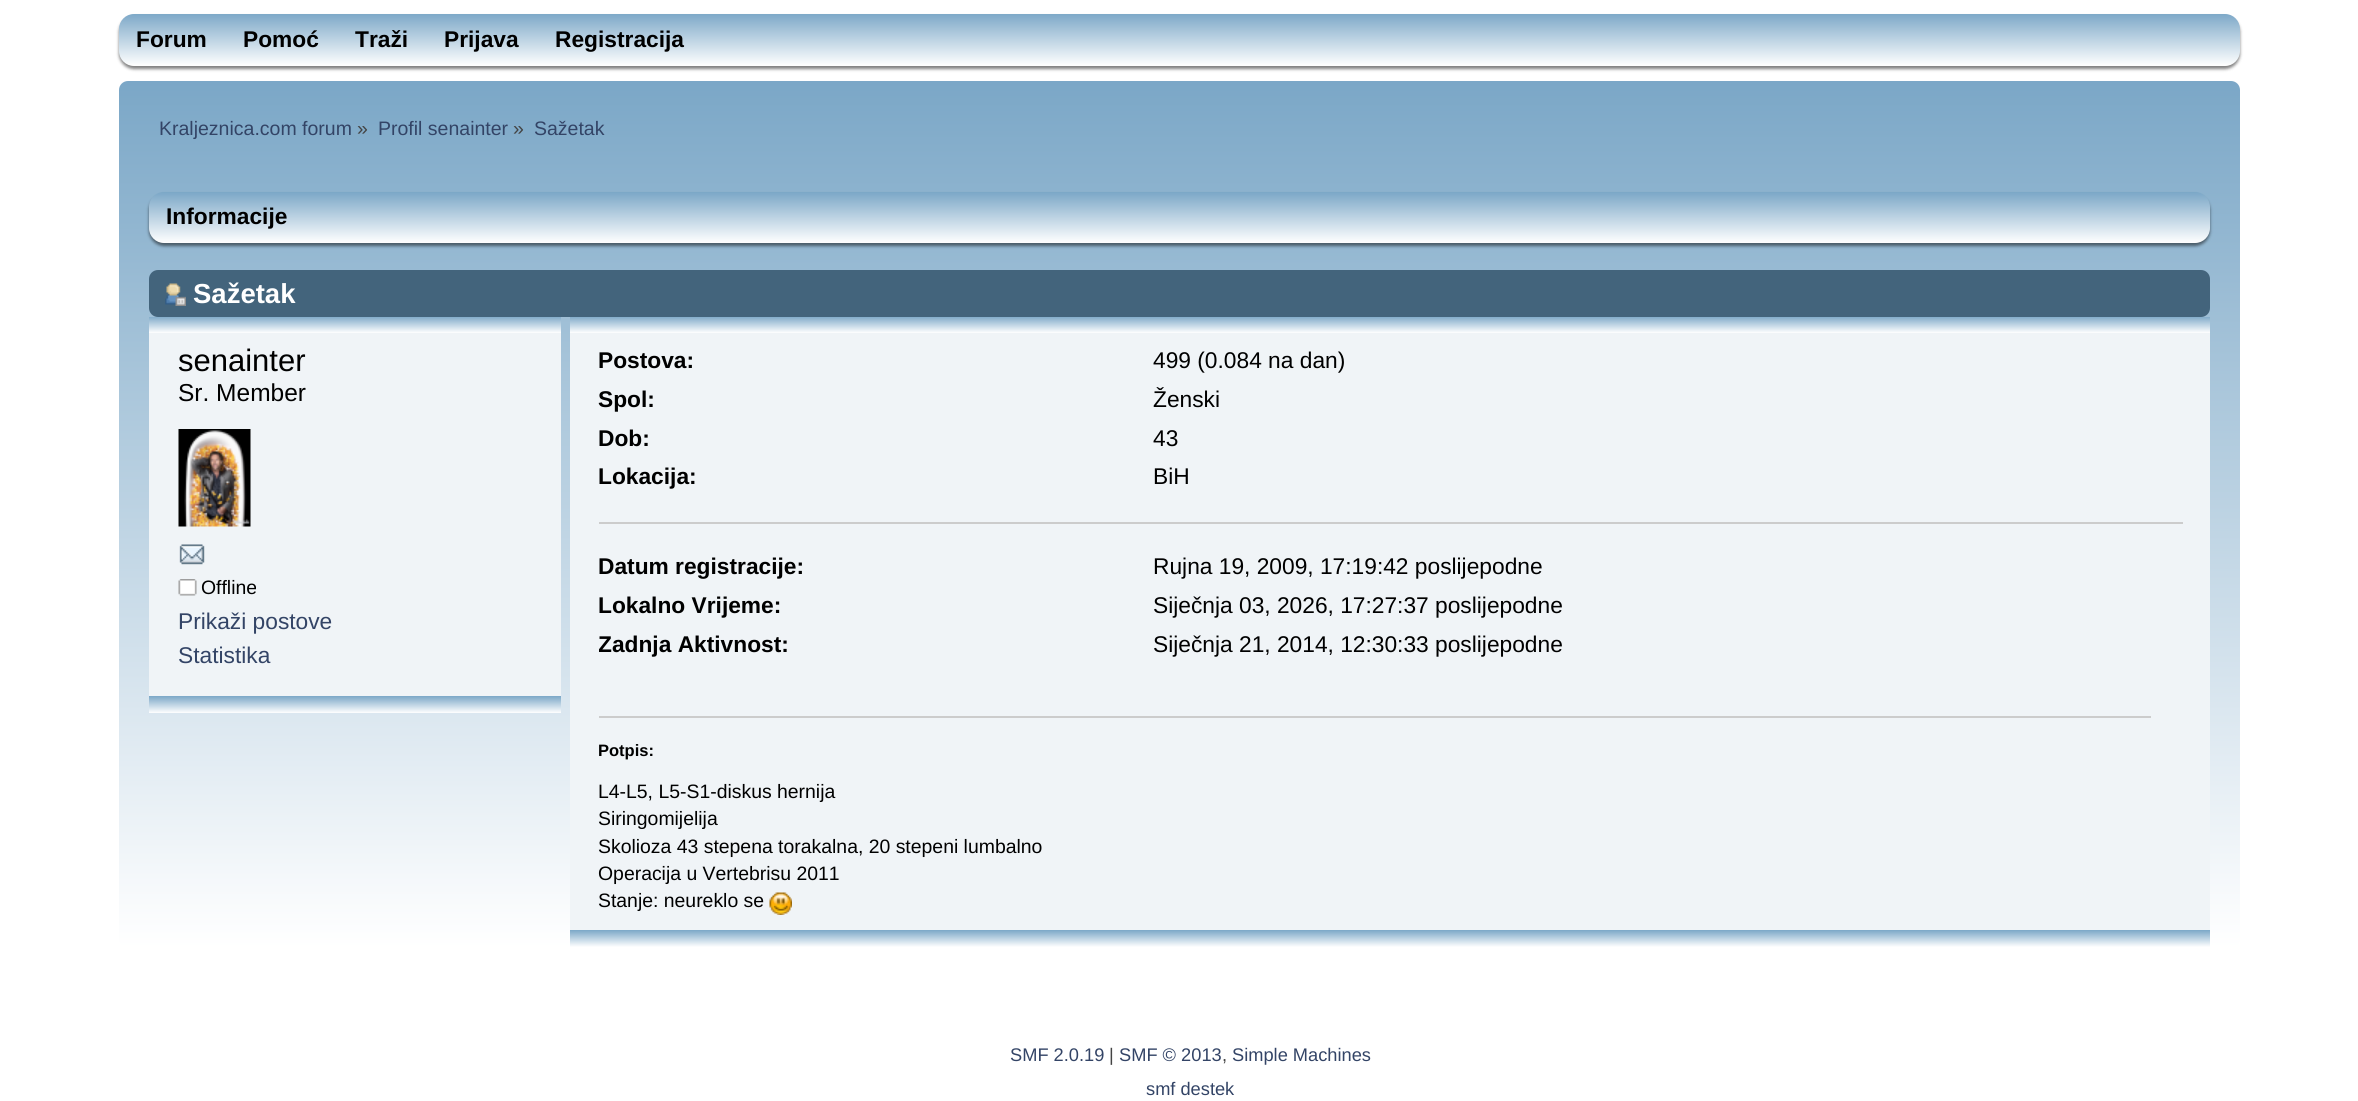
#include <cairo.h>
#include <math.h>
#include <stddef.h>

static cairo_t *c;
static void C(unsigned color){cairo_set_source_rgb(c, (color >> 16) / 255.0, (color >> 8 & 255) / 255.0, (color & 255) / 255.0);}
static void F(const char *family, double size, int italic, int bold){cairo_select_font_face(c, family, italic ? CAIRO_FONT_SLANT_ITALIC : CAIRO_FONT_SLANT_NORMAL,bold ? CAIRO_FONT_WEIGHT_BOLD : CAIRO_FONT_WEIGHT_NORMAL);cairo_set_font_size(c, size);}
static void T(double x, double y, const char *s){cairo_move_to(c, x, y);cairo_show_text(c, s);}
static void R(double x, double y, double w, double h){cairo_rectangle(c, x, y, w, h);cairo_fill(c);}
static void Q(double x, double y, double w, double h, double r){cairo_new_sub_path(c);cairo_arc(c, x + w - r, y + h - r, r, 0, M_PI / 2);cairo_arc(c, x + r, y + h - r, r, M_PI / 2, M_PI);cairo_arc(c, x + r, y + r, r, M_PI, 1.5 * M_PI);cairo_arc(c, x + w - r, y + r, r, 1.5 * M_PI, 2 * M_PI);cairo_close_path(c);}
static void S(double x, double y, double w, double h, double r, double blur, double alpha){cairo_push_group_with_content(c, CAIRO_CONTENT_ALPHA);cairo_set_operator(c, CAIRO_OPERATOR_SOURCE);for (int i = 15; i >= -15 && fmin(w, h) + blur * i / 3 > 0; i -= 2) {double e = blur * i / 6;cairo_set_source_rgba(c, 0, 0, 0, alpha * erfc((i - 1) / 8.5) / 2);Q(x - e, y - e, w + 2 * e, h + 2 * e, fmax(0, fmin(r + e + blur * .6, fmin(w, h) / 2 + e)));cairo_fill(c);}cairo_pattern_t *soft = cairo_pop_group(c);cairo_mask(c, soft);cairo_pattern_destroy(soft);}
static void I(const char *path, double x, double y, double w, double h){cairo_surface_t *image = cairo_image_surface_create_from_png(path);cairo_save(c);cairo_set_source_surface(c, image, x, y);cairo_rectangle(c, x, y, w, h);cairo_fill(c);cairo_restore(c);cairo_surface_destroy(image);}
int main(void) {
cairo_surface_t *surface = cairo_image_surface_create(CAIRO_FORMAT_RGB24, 2358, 1101);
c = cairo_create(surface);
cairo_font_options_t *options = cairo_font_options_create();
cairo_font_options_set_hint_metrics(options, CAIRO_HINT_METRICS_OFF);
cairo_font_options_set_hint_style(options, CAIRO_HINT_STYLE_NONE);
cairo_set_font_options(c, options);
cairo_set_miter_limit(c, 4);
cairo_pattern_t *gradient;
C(0xffffff);
cairo_paint(c);
C(0x000000);
S(119,17,2121,52,15,1.5,.5);
gradient = cairo_pattern_create_linear(1179,13,1179,66);
cairo_pattern_add_color_stop_rgba(gradient,0,0.482,0.655,0.78,1);
cairo_pattern_add_color_stop_rgba(gradient,1,1,1,1,1);
cairo_set_source(c,gradient);
cairo_pattern_destroy(gradient);
Q(119,14,2121,52,15);
cairo_fill(c);
F("Liberation Sans",22.75,0,1);
C(0x000000);
T(136,47,"Forum");
T(243,47,"Pomoć");
T(355,47,"Traži");
T(444,47,"Prijava");
T(555,47,"Registracija");
gradient = cairo_pattern_create_linear(1179,81,1179,948);
cairo_pattern_add_color_stop_rgba(gradient,0,0.482,0.655,0.78,1);
cairo_pattern_add_color_stop_rgba(gradient,1,1,1,1,1);
cairo_set_source(c,gradient);
cairo_pattern_destroy(gradient);
Q(119,81,2121,867,9);
cairo_fill(c);
F("Liberation Sans",19.5,0,0);
C(0x334466);
T(159,135,"Kraljeznica.com forum");
C(0x444444);
T(357,135,"»");
C(0x334466);
T(378,135,"Profil senainter");
C(0x444444);
T(513,135,"»");
C(0x334466);
T(534,135,"Sažetak");
C(0x000000);
S(149,195,2061,51,15,1.5,.5);
gradient = cairo_pattern_create_linear(1179,192,1179,243);
cairo_pattern_add_color_stop_rgba(gradient,0,0.482,0.655,0.78,1);
cairo_pattern_add_color_stop_rgba(gradient,1,1,1,1,1);
cairo_set_source(c,gradient);
cairo_pattern_destroy(gradient);
Q(149,192,2061,51,15);
cairo_fill(c);
F("Liberation Sans",22.75,0,1);
C(0x000000);
T(166,224,"Informacije");
C(0x43647c);
Q(149,270,2061,47,9);
cairo_fill(c);
I("1.png",165,283,21,23);
F("Liberation Sans",27.5,0,1);
C(0xffffff);
T(193,303,"Sažetak");
C(0xf0f4f7);
R(149,333,412,363);
gradient = cairo_pattern_create_linear(355,316,355,333);
cairo_pattern_add_color_stop_rgba(gradient,0,0.482,0.655,0.78,1);
cairo_pattern_add_color_stop_rgba(gradient,1,1,1,1,1);
cairo_set_source(c,gradient);
cairo_pattern_destroy(gradient);
R(149,317,412,16);
F("Liberation Sans",31,0,0);
C(0x000000);
T(178,371,"senainter");
F("Liberation Sans",24.5,0,0);
T(178,401,"Sr. Member");
I("2.png",178,429,73,98);
I("3.png",179,544,26,21);
I("4.png",178,579,19,17);
F("Liberation Sans",19.4,0,0);
T(201,594,"Offline");
F("Liberation Sans",22.75,0,0);
C(0x334466);
T(178,629,"Prikaži postove");
T(178,663,"Statistika");
gradient = cairo_pattern_create_linear(355,696,355,713);
cairo_pattern_add_color_stop_rgba(gradient,0,0.482,0.655,0.78,1);
cairo_pattern_add_color_stop_rgba(gradient,1,1,1,1,1);
cairo_set_source(c,gradient);
cairo_pattern_destroy(gradient);
R(149,696,412,17);
C(0xf0f4f7);
R(570,333,1640,597);
gradient = cairo_pattern_create_linear(1390,316,1390,333);
cairo_pattern_add_color_stop_rgba(gradient,0,0.482,0.655,0.78,1);
cairo_pattern_add_color_stop_rgba(gradient,1,1,1,1,1);
cairo_set_source(c,gradient);
cairo_pattern_destroy(gradient);
R(570,317,1640,16);
C(0xcccccc);
R(599,522,1584,2);
F("Liberation Sans",22.75,0,1);
C(0x000000);
T(598,368,"Postova:");
F("Liberation Sans",22.75,0,0);
T(1153,368,"499 (0.084 na dan)");
F("Liberation Sans",22.75,0,1);
T(598,407,"Spol:");
F("Liberation Sans",22.75,0,0);
T(1153,407,"Ženski");
F("Liberation Sans",22.75,0,1);
T(598,446,"Dob:");
F("Liberation Sans",22.75,0,0);
T(1153,446,"43");
F("Liberation Sans",22.75,0,1);
T(598,484,"Lokacija:");
F("Liberation Sans",22.75,0,0);
T(1153,484,"BiH");
F("Liberation Sans",22.75,0,1);
T(598,574,"Datum registracije:");
F("Liberation Sans",22.75,0,0);
T(1153,574,"Rujna 19, 2009, 17:19:42 poslijepodne");
F("Liberation Sans",22.75,0,1);
T(598,613,"Lokalno Vrijeme:");
F("Liberation Sans",22.75,0,0);
T(1153,613,"Siječnja 03, 2026, 17:27:37 poslijepodne");
cairo_save(c);
cairo_rectangle(c,599,551,1584,138);
cairo_clip(c);
F("Liberation Sans",22.75,0,1);
T(598,652,"Zadnja Aktivnost:");
cairo_restore(c);
T(1153,652,"Siječnja 21, 2014, 12:30:33 poslijepodne");
C(0xcccccc);
R(599,716,1552,2);
F("Liberation Sans",16.5,0,1);
C(0x000000);
T(598,756,"Potpis:");
F("Liberation Sans",19.4,0,0);
T(598,798,"L4-L5, L5-S1-diskus hernija");
T(598,825,"Siringomijelija");
T(598,853,"Skolioza 43 stepena torakalna, 20 stepeni lumbalno");
T(598,880,"Operacija u Vertebrisu 2011");
T(598,907,"Stanje: neureklo se");
I("5.png",769,892,23,23);
gradient = cairo_pattern_create_linear(1390,930,1390,947);
cairo_pattern_add_color_stop_rgba(gradient,0,0.482,0.655,0.78,1);
cairo_pattern_add_color_stop_rgba(gradient,1,1,1,1,1);
cairo_set_source(c,gradient);
cairo_pattern_destroy(gradient);
R(570,930,1640,17);
F("Liberation Sans",18.25,0,0);
C(0x334466);
T(1010,1061,"SMF 2.0.19");
C(0x444444);
T(1109,1061,"|");
C(0x334466);
T(1119,1061,"SMF © 2013");
C(0x444444);
T(1222,1061,",");
C(0x334466);
T(1232,1061,"Simple Machines");
T(1146,1095,"smf destek");
cairo_surface_write_to_png(surface, "o.png");
cairo_font_options_destroy(options);
cairo_destroy(c);
cairo_surface_destroy(surface);
return 0;
}
